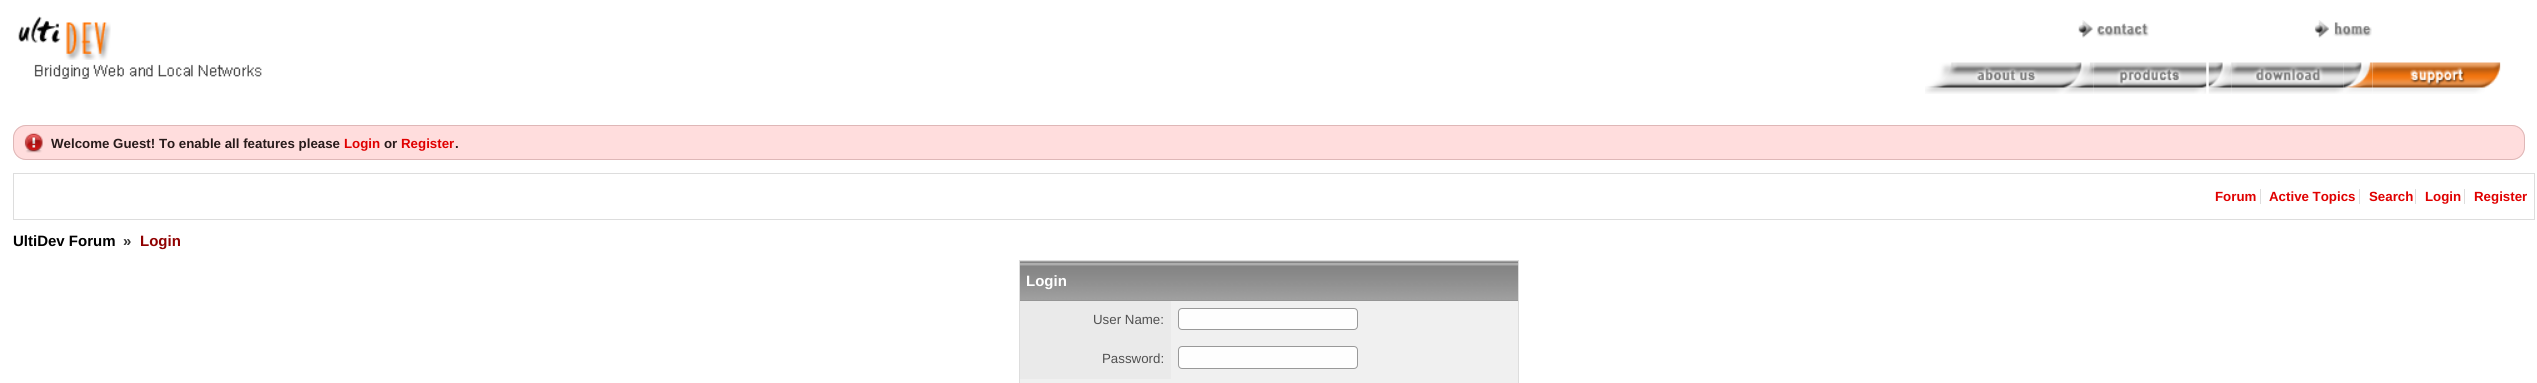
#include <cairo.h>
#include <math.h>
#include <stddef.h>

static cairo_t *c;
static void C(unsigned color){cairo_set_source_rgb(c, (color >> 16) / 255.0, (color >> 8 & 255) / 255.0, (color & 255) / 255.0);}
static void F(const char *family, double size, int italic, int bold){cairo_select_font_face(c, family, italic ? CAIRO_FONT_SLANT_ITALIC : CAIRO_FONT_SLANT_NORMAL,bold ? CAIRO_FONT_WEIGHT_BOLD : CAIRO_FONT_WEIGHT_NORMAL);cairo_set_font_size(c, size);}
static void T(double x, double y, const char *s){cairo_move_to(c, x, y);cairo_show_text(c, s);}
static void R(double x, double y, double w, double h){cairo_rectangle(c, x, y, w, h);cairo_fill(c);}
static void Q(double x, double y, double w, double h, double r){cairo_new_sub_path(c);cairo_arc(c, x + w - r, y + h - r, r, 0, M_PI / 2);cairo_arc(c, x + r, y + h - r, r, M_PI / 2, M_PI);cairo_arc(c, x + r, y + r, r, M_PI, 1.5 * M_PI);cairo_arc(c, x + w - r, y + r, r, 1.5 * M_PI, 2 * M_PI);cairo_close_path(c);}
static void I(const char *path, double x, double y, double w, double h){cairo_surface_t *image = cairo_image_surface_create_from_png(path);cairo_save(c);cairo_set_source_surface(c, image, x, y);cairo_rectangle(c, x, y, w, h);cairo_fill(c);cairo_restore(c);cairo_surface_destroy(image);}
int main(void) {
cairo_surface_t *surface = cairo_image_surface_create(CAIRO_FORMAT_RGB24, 2537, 383);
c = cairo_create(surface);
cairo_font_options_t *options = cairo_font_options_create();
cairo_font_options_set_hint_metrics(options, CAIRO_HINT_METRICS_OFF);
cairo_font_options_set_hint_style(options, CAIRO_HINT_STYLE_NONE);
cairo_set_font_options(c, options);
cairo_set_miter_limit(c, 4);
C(0xffffff);
cairo_paint(c);
I("1.png",18,16,93,44);
I("2.png",2078,20,71,18);
I("3.png",2314,20,58,18);
I("4.png",34,64,228,15);
I("5.png",1925,62,135,32);
I("6.png",2060,62,34,32);
I("7.png",2093,62,114,32);
I("8.png",2208,62,24,32);
I("9.png",2231,62,113,32);
I("10.png",2343,62,30,32);
I("11.png",2372,62,113,32);
I("12.png",2485,62,16,26);
C(0xffdddd);
Q(13,125,2512,35,13);
cairo_fill(c);
I("13.png",24,133,19,20);
Q(13.5,125.5,2511,34,12.5);
C(0xdeb7b7);
cairo_set_line_width(c,1);
cairo_stroke(c);
F("Liberation Sans",13.3,0,1);
C(0x281b1b);
T(51,148,"Welcome Guest! To enable all features please");
C(0xe00000);
T(344,148,"Login");
C(0x281b1b);
T(384,148,"or");
C(0xe00000);
T(401,148,"Register");
C(0x281b1b);
T(455,148,".");
cairo_rectangle(c,13.5,173.5,2521,46);
C(0xdddddd);
cairo_stroke(c);
C(0xe00000);
T(2215,201,"Forum");
T(2269,201,"Active Topics");
C(0xdddddd);
R(2260,189,1,15);
C(0xe00000);
T(2369,201,"Search");
C(0xdddddd);
R(2359,189,1,15);
C(0xe00000);
T(2425,201,"Login");
C(0xdddddd);
R(2415,189,1,15);
C(0xe00000);
T(2474,201,"Register");
C(0xdddddd);
R(2464,189,1,15);
F("Liberation Sans",15,0,1);
C(0x000000);
T(13,246,"UltiDev Forum");
C(0x333333);
T(123,246,"»");
C(0x900000);
T(140,246,"Login");
C(0xdddddd);
R(1019,260,500,1);
C(0xf0f0f0);
R(1020,379,499,4);
C(0xdddddd);
R(1518,260,1,123);
R(1019,260,1,123);
I("14.png",1020,261,498,40);
C(0xffffff);
T(1026,286,"Login");
C(0xeaeaea);
R(1020,301,151,78);
F("Liberation Sans",13.3,0,0);
C(0x505050);
T(1093,324,"User Name:");
C(0xf0f0f0);
R(1171,301,347,78);
C(0xfefefe);
Q(1178.5,308.5,179,21,3.5);
cairo_fill_preserve(c);
C(0x999999);
cairo_stroke(c);
C(0x505050);
T(1102,363,"Password:");
C(0xfefefe);
Q(1178.5,346.5,179,22,3.5);
cairo_fill_preserve(c);
C(0x999999);
cairo_stroke(c);
cairo_surface_write_to_png(surface, "o.png");
cairo_font_options_destroy(options);
cairo_destroy(c);
cairo_surface_destroy(surface);
return 0;
}
